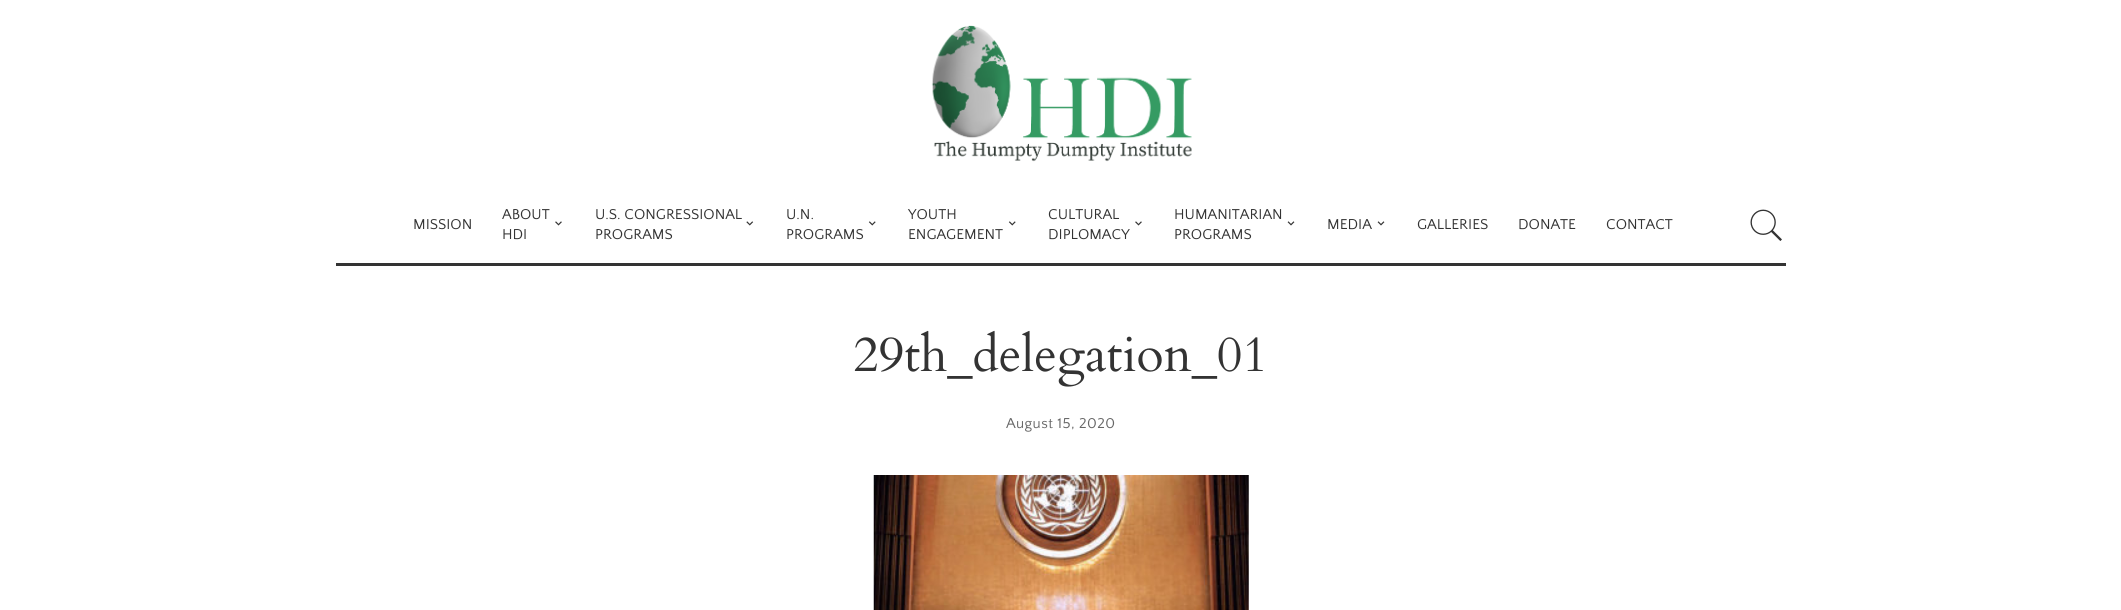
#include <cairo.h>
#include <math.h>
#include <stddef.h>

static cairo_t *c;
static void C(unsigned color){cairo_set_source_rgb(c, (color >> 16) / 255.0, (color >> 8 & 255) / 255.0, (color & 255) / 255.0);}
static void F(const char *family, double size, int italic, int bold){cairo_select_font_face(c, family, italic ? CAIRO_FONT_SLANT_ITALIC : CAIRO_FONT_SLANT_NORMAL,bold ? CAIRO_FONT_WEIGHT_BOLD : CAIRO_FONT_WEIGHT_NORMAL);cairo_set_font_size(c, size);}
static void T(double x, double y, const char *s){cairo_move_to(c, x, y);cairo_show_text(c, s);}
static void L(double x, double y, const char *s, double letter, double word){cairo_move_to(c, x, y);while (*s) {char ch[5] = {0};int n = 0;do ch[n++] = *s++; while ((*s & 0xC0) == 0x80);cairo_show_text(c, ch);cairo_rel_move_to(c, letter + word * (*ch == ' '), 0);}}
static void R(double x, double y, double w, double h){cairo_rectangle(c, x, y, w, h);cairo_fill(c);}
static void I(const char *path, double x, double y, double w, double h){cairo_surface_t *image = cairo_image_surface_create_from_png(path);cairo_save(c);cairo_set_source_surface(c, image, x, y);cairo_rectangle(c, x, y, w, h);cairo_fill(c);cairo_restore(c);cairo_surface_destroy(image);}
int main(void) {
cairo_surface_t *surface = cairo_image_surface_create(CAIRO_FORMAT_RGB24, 2121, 610);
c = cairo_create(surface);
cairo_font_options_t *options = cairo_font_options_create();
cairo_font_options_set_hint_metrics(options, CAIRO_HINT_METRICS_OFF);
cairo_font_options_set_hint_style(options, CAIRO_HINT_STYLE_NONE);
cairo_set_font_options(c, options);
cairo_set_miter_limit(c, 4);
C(0xffffff);
cairo_paint(c);
I("1.png",931,25,261,137);
C(0x333333);
R(336,263,1450,3);
F("Quattrocento Sans",15,0,0);
T(413,229,"MISSION");
T(502,219,"ABOUT");
T(502,239,"HDI");
I("2.png",555,221,7,5);
T(595,219,"U.S. CONGRESSIONAL");
T(595,239,"PROGRAMS");
I("3.png",746,221,8,5);
T(786,219,"U.N.");
T(786,239,"PROGRAMS");
I("4.png",868,221,8,5);
T(908,219,"YOUTH");
T(908,239,"ENGAGEMENT");
I("4.png",1008,221,8,5);
T(1048,219,"CULTURAL");
T(1048,239,"DIPLOMACY");
I("2.png",1135,221,7,5);
T(1174,219,"HUMANITARIAN");
T(1174,239,"PROGRAMS");
I("5.png",1287,221,8,5);
T(1327,229,"MEDIA");
I("5.png",1377,221,8,5);
T(1417,229,"GALLERIES");
T(1518,229,"DONATE");
T(1606,229,"CONTACT");
I("6.png",1750,209,32,32);
F("Cardo",50,0,0);
T(853,371,"29th_delegation_01");
F("Quattrocento Sans",15,0,0);
C(0x666666);
L(1006,428,"August 15, 2020",.4,0);
I("7.png",873,475,376,135);
cairo_surface_write_to_png(surface, "o.png");
cairo_font_options_destroy(options);
cairo_destroy(c);
cairo_surface_destroy(surface);
return 0;
}
